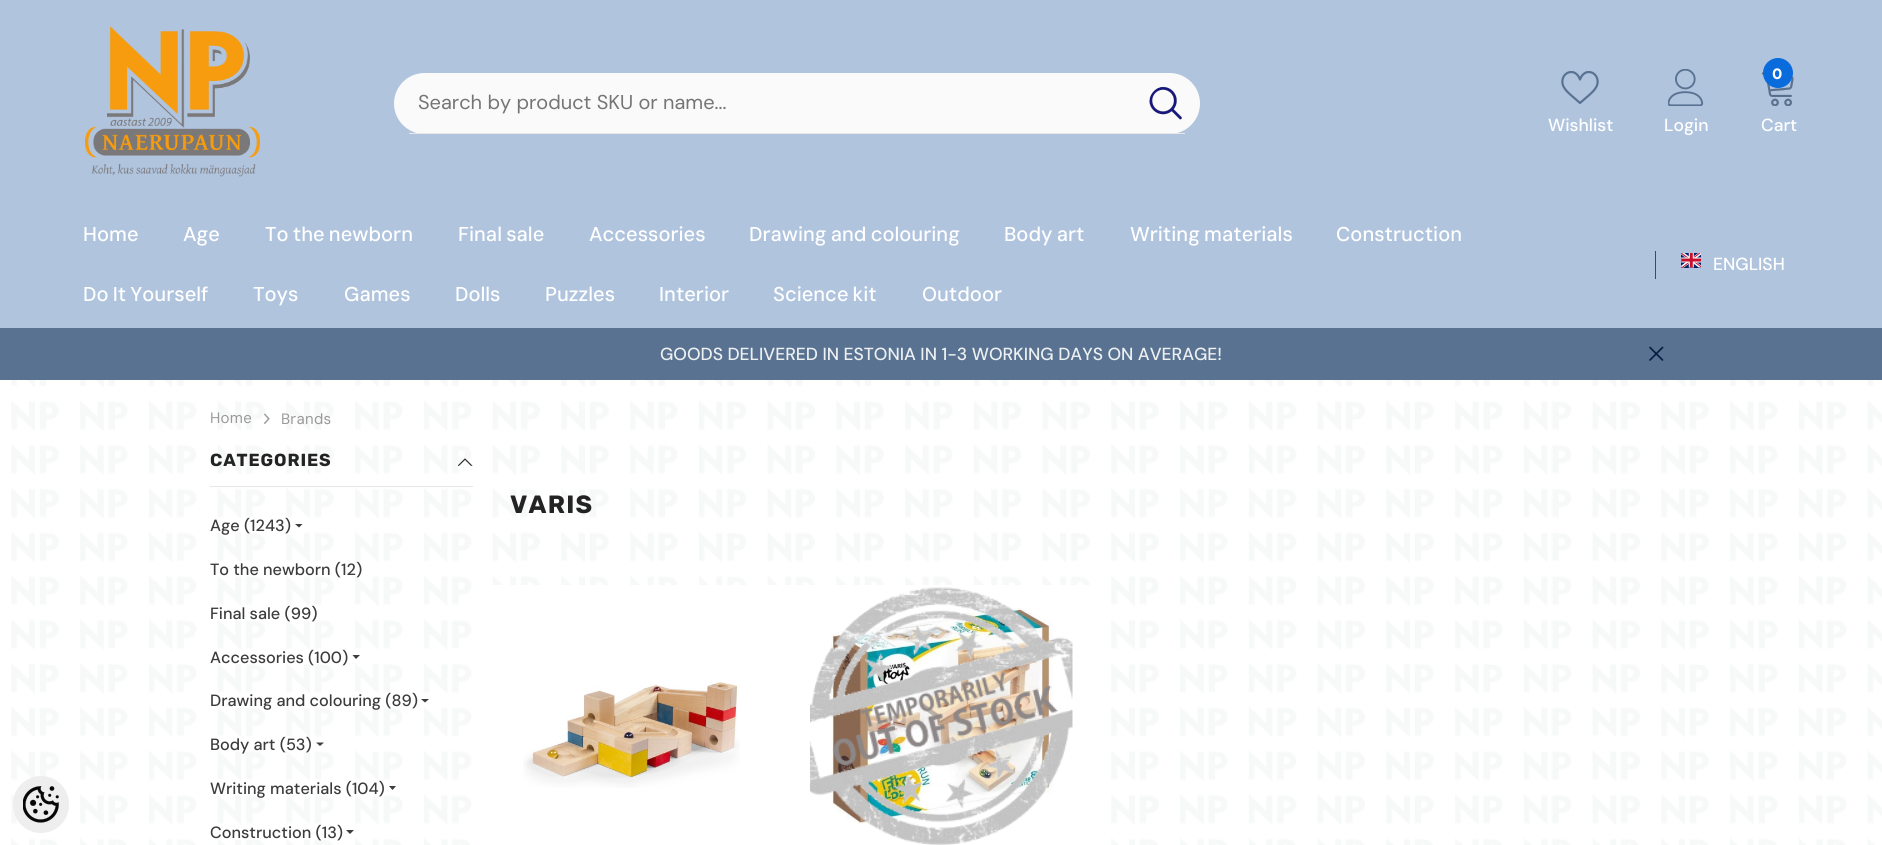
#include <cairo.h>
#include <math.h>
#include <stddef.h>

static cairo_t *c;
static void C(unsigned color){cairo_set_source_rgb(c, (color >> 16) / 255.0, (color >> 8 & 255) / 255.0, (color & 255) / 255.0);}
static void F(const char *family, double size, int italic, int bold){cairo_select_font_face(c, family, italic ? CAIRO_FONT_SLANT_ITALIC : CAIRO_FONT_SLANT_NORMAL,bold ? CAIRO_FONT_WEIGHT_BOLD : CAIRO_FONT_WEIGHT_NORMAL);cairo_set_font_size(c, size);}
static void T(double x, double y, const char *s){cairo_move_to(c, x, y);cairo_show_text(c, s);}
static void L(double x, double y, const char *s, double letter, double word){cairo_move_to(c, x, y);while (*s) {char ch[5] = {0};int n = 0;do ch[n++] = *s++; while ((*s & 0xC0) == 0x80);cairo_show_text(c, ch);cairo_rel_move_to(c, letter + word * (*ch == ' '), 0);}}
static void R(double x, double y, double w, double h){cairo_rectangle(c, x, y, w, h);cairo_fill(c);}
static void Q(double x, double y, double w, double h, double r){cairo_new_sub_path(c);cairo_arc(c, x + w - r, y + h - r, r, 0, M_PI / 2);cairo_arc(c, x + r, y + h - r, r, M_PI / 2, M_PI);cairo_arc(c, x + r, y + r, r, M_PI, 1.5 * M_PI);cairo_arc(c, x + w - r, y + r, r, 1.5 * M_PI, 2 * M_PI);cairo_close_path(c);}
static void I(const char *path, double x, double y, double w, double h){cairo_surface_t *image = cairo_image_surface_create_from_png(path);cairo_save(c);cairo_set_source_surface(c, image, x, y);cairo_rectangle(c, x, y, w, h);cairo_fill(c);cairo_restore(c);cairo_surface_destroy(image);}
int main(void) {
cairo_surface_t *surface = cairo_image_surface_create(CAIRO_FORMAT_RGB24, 1882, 845);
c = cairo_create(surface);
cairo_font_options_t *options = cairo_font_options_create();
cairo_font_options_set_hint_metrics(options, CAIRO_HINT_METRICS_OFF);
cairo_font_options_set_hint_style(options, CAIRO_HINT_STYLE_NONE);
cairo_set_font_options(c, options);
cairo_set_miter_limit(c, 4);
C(0xffffff);
cairo_paint(c);
I("1.png",11,380,1871,465);
C(0xb0c4de);
R(0,0,1882,328);
I("2.png",85,26,175,151);
C(0xfafafa);
Q(394,73,806,61,30.5);
cairo_fill(c);
C(0xe7e7e7);
R(409,133,776,1);
F("DM Sans",20,0,0);
C(0x757575);
T(418,109,"Search by product SKU or name...");
I("3.png",1149,86,33,34);
I("4.png",1561,71,38,33);
F("DM Sans Medium",17.5,0,0);
C(0xffffff);
T(1548,131,"Wishlist");
I("5.png",1668,69,36,37);
T(1664,131,"Login");
I("6.png",1761,72,33,34);
C(0x0a6cdc);
cairo_arc(c,1778,73,15,0,2 * M_PI);
cairo_fill(c);
F("DM Sans Black",15,0,0);
C(0xffffff);
L(1772,79,"0",.25,0);
F("DM Sans Medium",17.5,0,0);
T(1761,131,"Cart");
F("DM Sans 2 Medium",20,0,0);
T(83,241,"Home");
T(183,241,"Age");
L(265,241,"To the newborn",0,-1);
L(458,241,"Final sale",0,-1);
T(589,241,"Accessories");
L(749,241,"Drawing and colouring",0,-1);
L(1004,241,"Body art",0,-1);
L(1130,241,"Writing materials",0,-1);
T(1336,241,"Construction");
L(83,301,"Do It Yourself",0,-1);
T(253,301,"Toys");
T(344,301,"Games");
T(455,301,"Dolls");
T(545,301,"Puzzles");
T(659,301,"Interior");
L(773,301,"Science kit",0,-1);
T(922,301,"Outdoor");
C(0x3e4093);
R(1655,251,1,28);
I("7.png",1681,253,20,15);
F("DM Sans Medium",17.5,0,0);
C(0xffffff);
T(1713,270,"ENGLISH");
C(0x597291);
R(0,328,1882,52);
C(0xecf0f1);
T(660,360,"GOODS DELIVERED IN ESTONIA IN 1-3 WORKING DAYS ON AVERAGE!");
I("8.png",1649,346,15,15);
C(0xeeeeee);
Q(13,776,56,57,28);
cairo_fill(c);
I("9.png",23,786,36,37);
F("DM Sans 2",15,0,0);
C(0x999999);
L(210,423,"Home",.25,0);
I("10.png",264,413,6,11);
L(281,424,"Brands",.25,0);
C(0xe6e6e6);
R(210,486,263,1);
F("Rubik",17.5,0,1);
C(0x232323);
L(210,466,"CATEGORIES",.9,0);
I("11.png",458,458,15,8);
F("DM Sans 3 Medium",16.25,0,0);
C(0x3c3c3c);
T(210,531,"Age (1243)");
cairo_new_path(c);
cairo_move_to(c,295,524);
cairo_line_to(c,302.5,524);
cairo_line_to(c,299,527.5);
cairo_close_path(c);
cairo_fill(c);
T(210,575,"To the newborn (12)");
T(210,619,"Final sale (99)");
T(210,663,"Accessories (100)");
cairo_new_path(c);
cairo_move_to(c,352.5,655);
cairo_line_to(c,360,655);
cairo_line_to(c,356,659);
cairo_close_path(c);
cairo_fill(c);
T(210,706,"Drawing and colouring (89)");
cairo_new_path(c);
cairo_move_to(c,421,699);
cairo_line_to(c,429,699);
cairo_line_to(c,425,702.5);
cairo_close_path(c);
cairo_fill(c);
T(210,750,"Body art (53)");
cairo_new_path(c);
cairo_move_to(c,316,742.5);
cairo_line_to(c,324,742.5);
cairo_line_to(c,320,746);
cairo_close_path(c);
cairo_fill(c);
T(210,794,"Writing materials (104)");
cairo_new_path(c);
cairo_move_to(c,389,786);
cairo_line_to(c,396,786);
cairo_line_to(c,392.5,790);
cairo_close_path(c);
cairo_fill(c);
T(210,838,"Construction (13)");
cairo_new_path(c);
cairo_move_to(c,346,830);
cairo_line_to(c,354,830);
cairo_line_to(c,350,834);
cairo_close_path(c);
cairo_fill(c);
F("Rubik",25,0,1);
C(0x232323);
L(510,513,"VARIS",1.25,0);
C(0xffffff);
R(492,585,598,260);
I("12.png",523,682,217,106);
I("14.png",831,608,223,217);
I("13.png",810,587,263,258);
cairo_surface_write_to_png(surface, "o.png");
cairo_font_options_destroy(options);
cairo_destroy(c);
cairo_surface_destroy(surface);
return 0;
}
